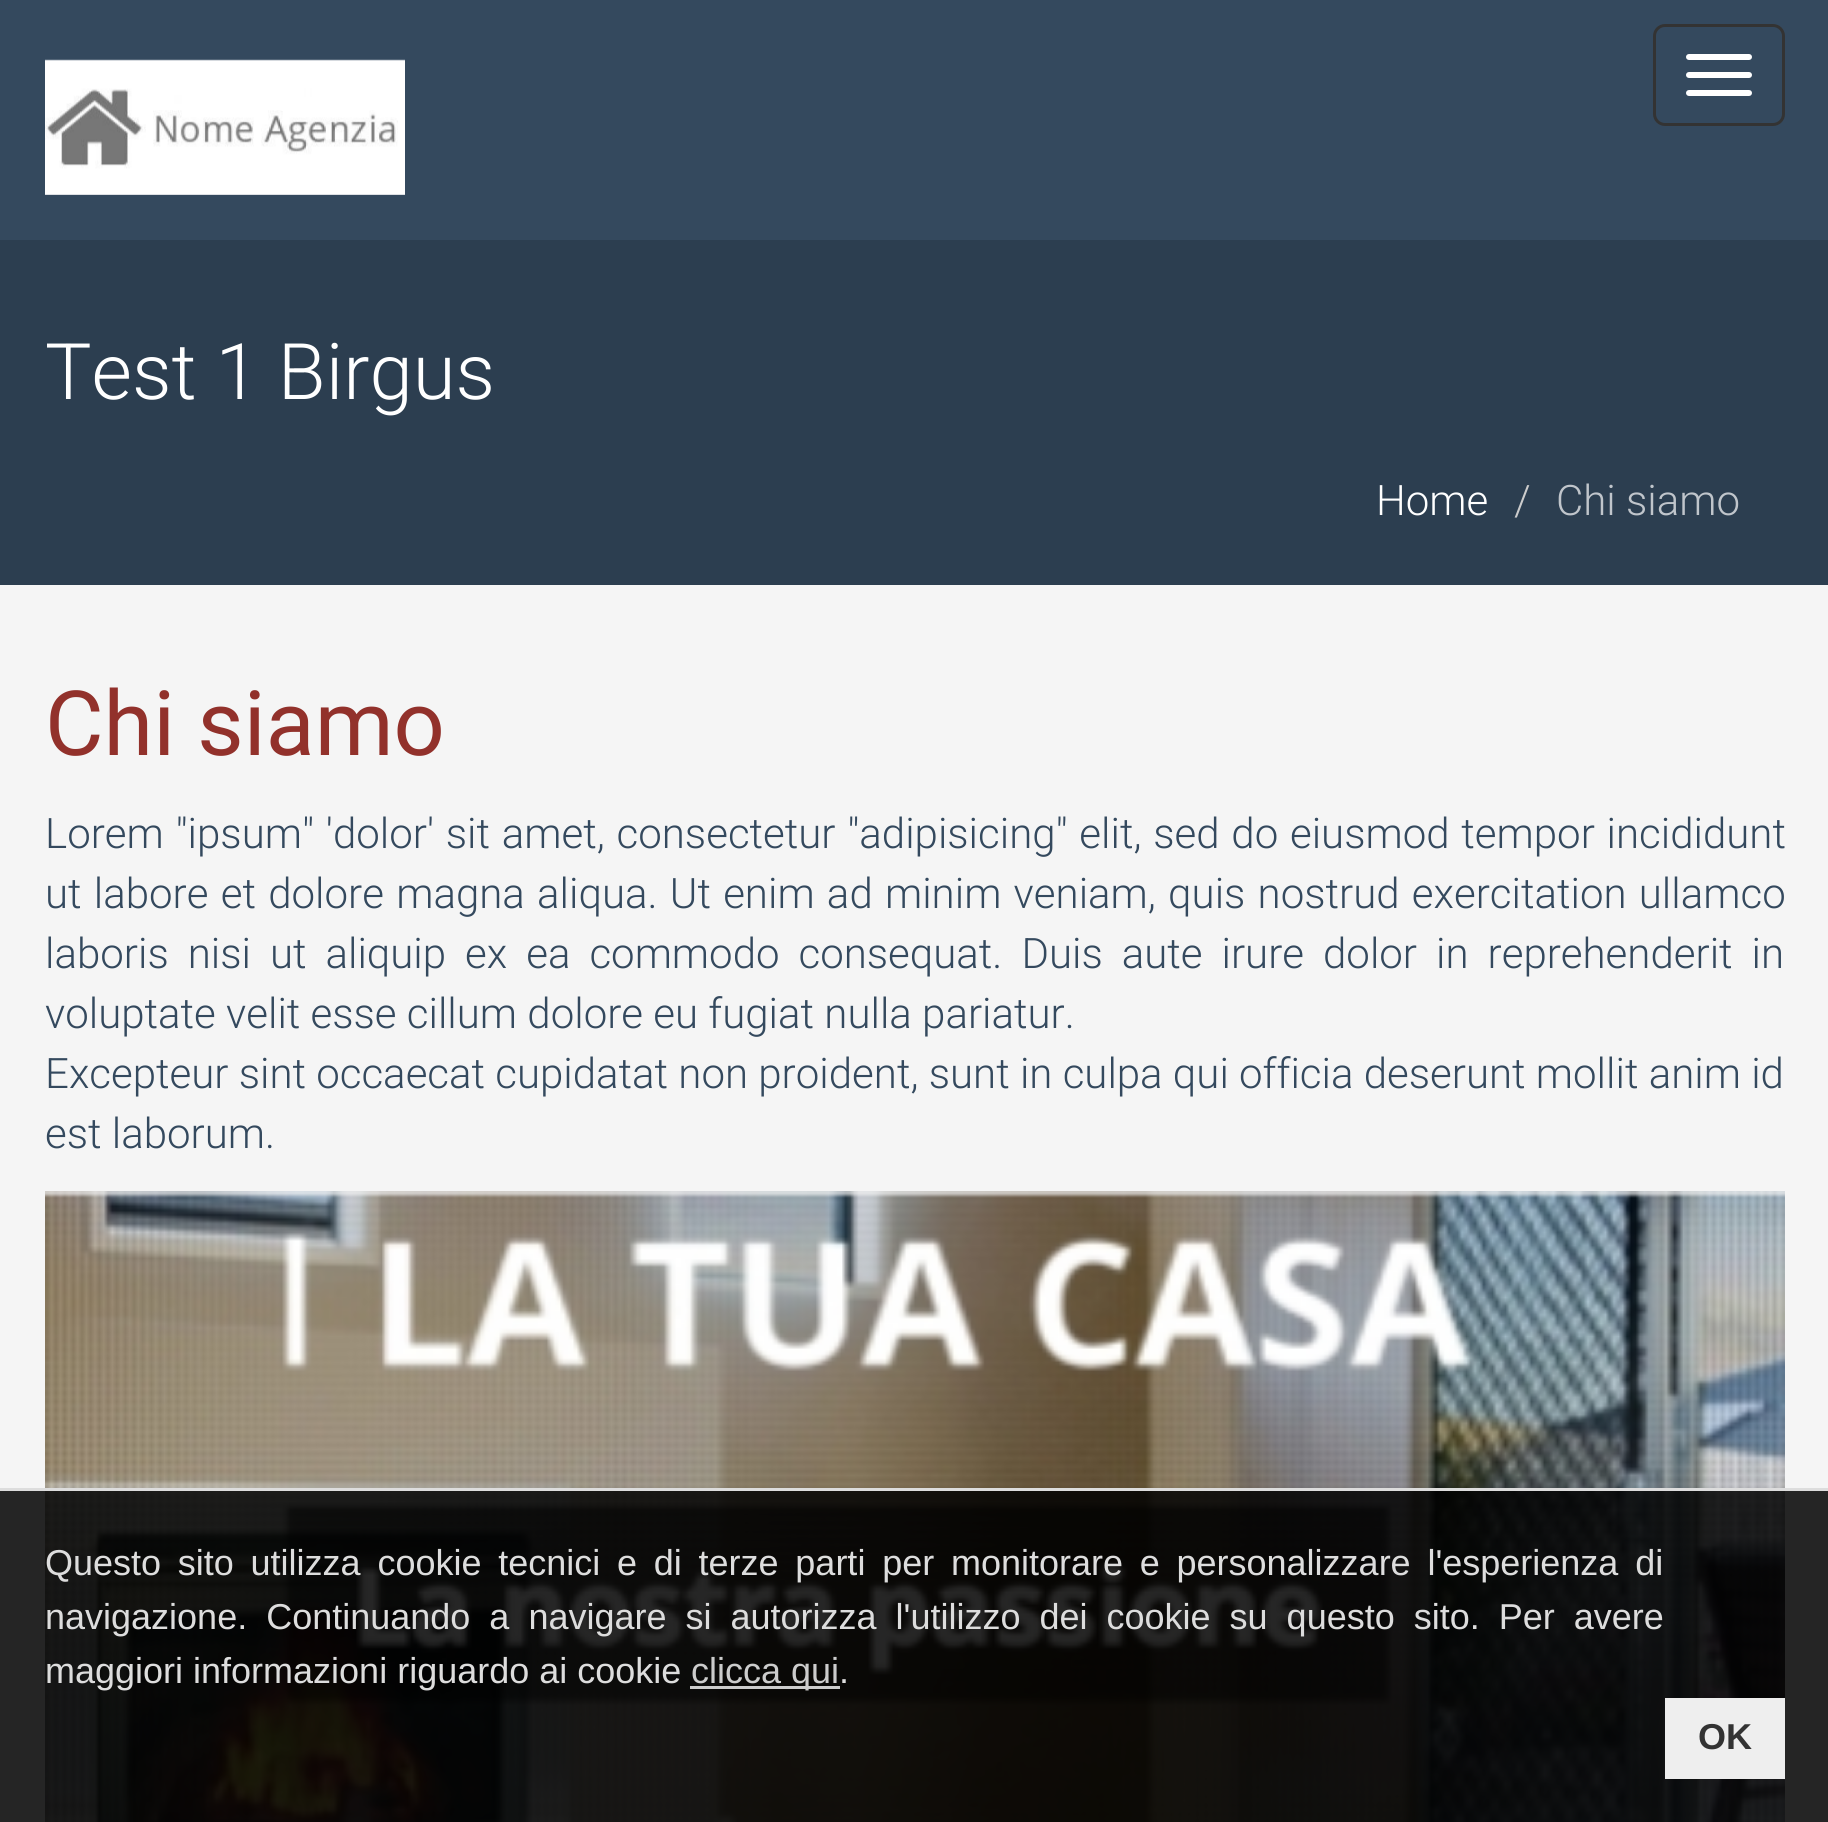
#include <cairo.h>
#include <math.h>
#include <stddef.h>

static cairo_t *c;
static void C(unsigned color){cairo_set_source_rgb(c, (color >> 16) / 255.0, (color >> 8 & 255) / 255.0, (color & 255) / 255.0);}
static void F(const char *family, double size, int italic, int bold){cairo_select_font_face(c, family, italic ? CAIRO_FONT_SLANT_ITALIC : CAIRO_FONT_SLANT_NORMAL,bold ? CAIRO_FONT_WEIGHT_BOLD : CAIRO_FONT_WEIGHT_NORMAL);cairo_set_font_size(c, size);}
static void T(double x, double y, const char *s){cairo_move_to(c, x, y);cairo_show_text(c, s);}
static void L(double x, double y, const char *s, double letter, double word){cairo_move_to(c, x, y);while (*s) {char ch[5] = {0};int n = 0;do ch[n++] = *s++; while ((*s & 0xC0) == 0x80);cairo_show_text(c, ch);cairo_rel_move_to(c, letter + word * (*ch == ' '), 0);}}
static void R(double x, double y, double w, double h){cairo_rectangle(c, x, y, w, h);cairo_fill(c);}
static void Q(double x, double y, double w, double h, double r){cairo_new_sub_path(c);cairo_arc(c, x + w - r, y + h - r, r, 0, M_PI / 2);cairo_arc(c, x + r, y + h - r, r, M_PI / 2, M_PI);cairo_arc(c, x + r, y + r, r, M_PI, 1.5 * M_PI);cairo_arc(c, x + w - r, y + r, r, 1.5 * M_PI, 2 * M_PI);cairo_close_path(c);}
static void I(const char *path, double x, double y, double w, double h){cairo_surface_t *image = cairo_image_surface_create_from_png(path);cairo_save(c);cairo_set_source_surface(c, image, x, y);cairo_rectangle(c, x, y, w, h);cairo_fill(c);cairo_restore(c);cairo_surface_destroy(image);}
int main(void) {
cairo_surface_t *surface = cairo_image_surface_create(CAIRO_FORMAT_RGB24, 1828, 1822);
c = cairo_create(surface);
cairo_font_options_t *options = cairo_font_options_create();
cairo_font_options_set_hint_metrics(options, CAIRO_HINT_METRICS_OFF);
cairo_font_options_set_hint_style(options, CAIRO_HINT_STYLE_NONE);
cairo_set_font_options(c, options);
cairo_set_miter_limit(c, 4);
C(0xf5f5f5);
cairo_paint(c);
C(0x34495e);
R(0,0,1828,240);
I("1.png",45,59,360,136);
Q(1654.5,25.5,129,99,10.5);
C(0x333333);
cairo_set_line_width(c,3);
cairo_stroke(c);
C(0xffffff);
Q(1686,54,66,6,3);
cairo_fill(c);
Q(1686,72,66,6,3);
cairo_fill(c);
Q(1686,90,66,6,3);
cairo_fill(c);
C(0x2c3e50);
R(0,240,1828,345);
F("Roboto Light",78,0,0);
C(0xffffff);
T(45,399,"Test 1 Birgus");
F("Roboto Light",42,0,0);
T(1376,515,"Home");
C(0xcccccc);
T(1514,515,"/");
C(0xc0c5cb);
T(1556,515,"Chi siamo");
F("Roboto",90,0,0);
C(0x92312b);
T(45,755,"Chi siamo");
F("Roboto Light",42,0,0);
C(0x34495e);
L(45,848,"Lorem \"ipsum\" 'dolor' sit amet, consectetur \"adipisicing\" elit, sed do eiusmod tempor incididunt",0,1.5);
L(45,908,"ut labore et dolore magna aliqua. Ut enim ad minim veniam, quis nostrud exercitation ullamco",0,2);
L(45,968,"laboris nisi ut aliquip ex ea commodo consequat. Duis aute irure dolor in reprehenderit in",0,8.75);
T(45,1028,"voluptate velit esse cillum dolore eu fugiat nulla pariatur.");
T(45,1088,"Excepteur sint occaecat cupidatat non proident, sunt in culpa qui officia deserunt mollit anim id");
T(45,1148,"est laborum.");
I("2.png",45,1191,1740,631);
cairo_set_source_rgba(c,0,0,0,0.85);
R(0,1491,1828,331);
C(0xdddddd);
R(0,1488,1828,3);
F("Liberation Sans",36,0,0);
L(45,1575,"Questo sito utilizza cookie tecnici e di terze parti per monitorare e personalizzare l'esperienza di",0,6.75);
L(45,1629,"navigazione. Continuando a navigare si autorizza l'utilizzo dei cookie su questo sito. Per avere",0,9);
T(45,1683,"maggiori informazioni riguardo ai cookie");
C(0xcccccc);
R(690,1686,150,3);
T(691,1683,"clicca qui");
C(0xdddddd);
T(839,1683,".");
C(0xeeeeee);
R(1665,1698,120,81);
F("Liberation Sans",36,0,1);
C(0x333333);
T(1698,1749,"OK");
cairo_surface_write_to_png(surface, "o.png");
cairo_font_options_destroy(options);
cairo_destroy(c);
cairo_surface_destroy(surface);
return 0;
}
